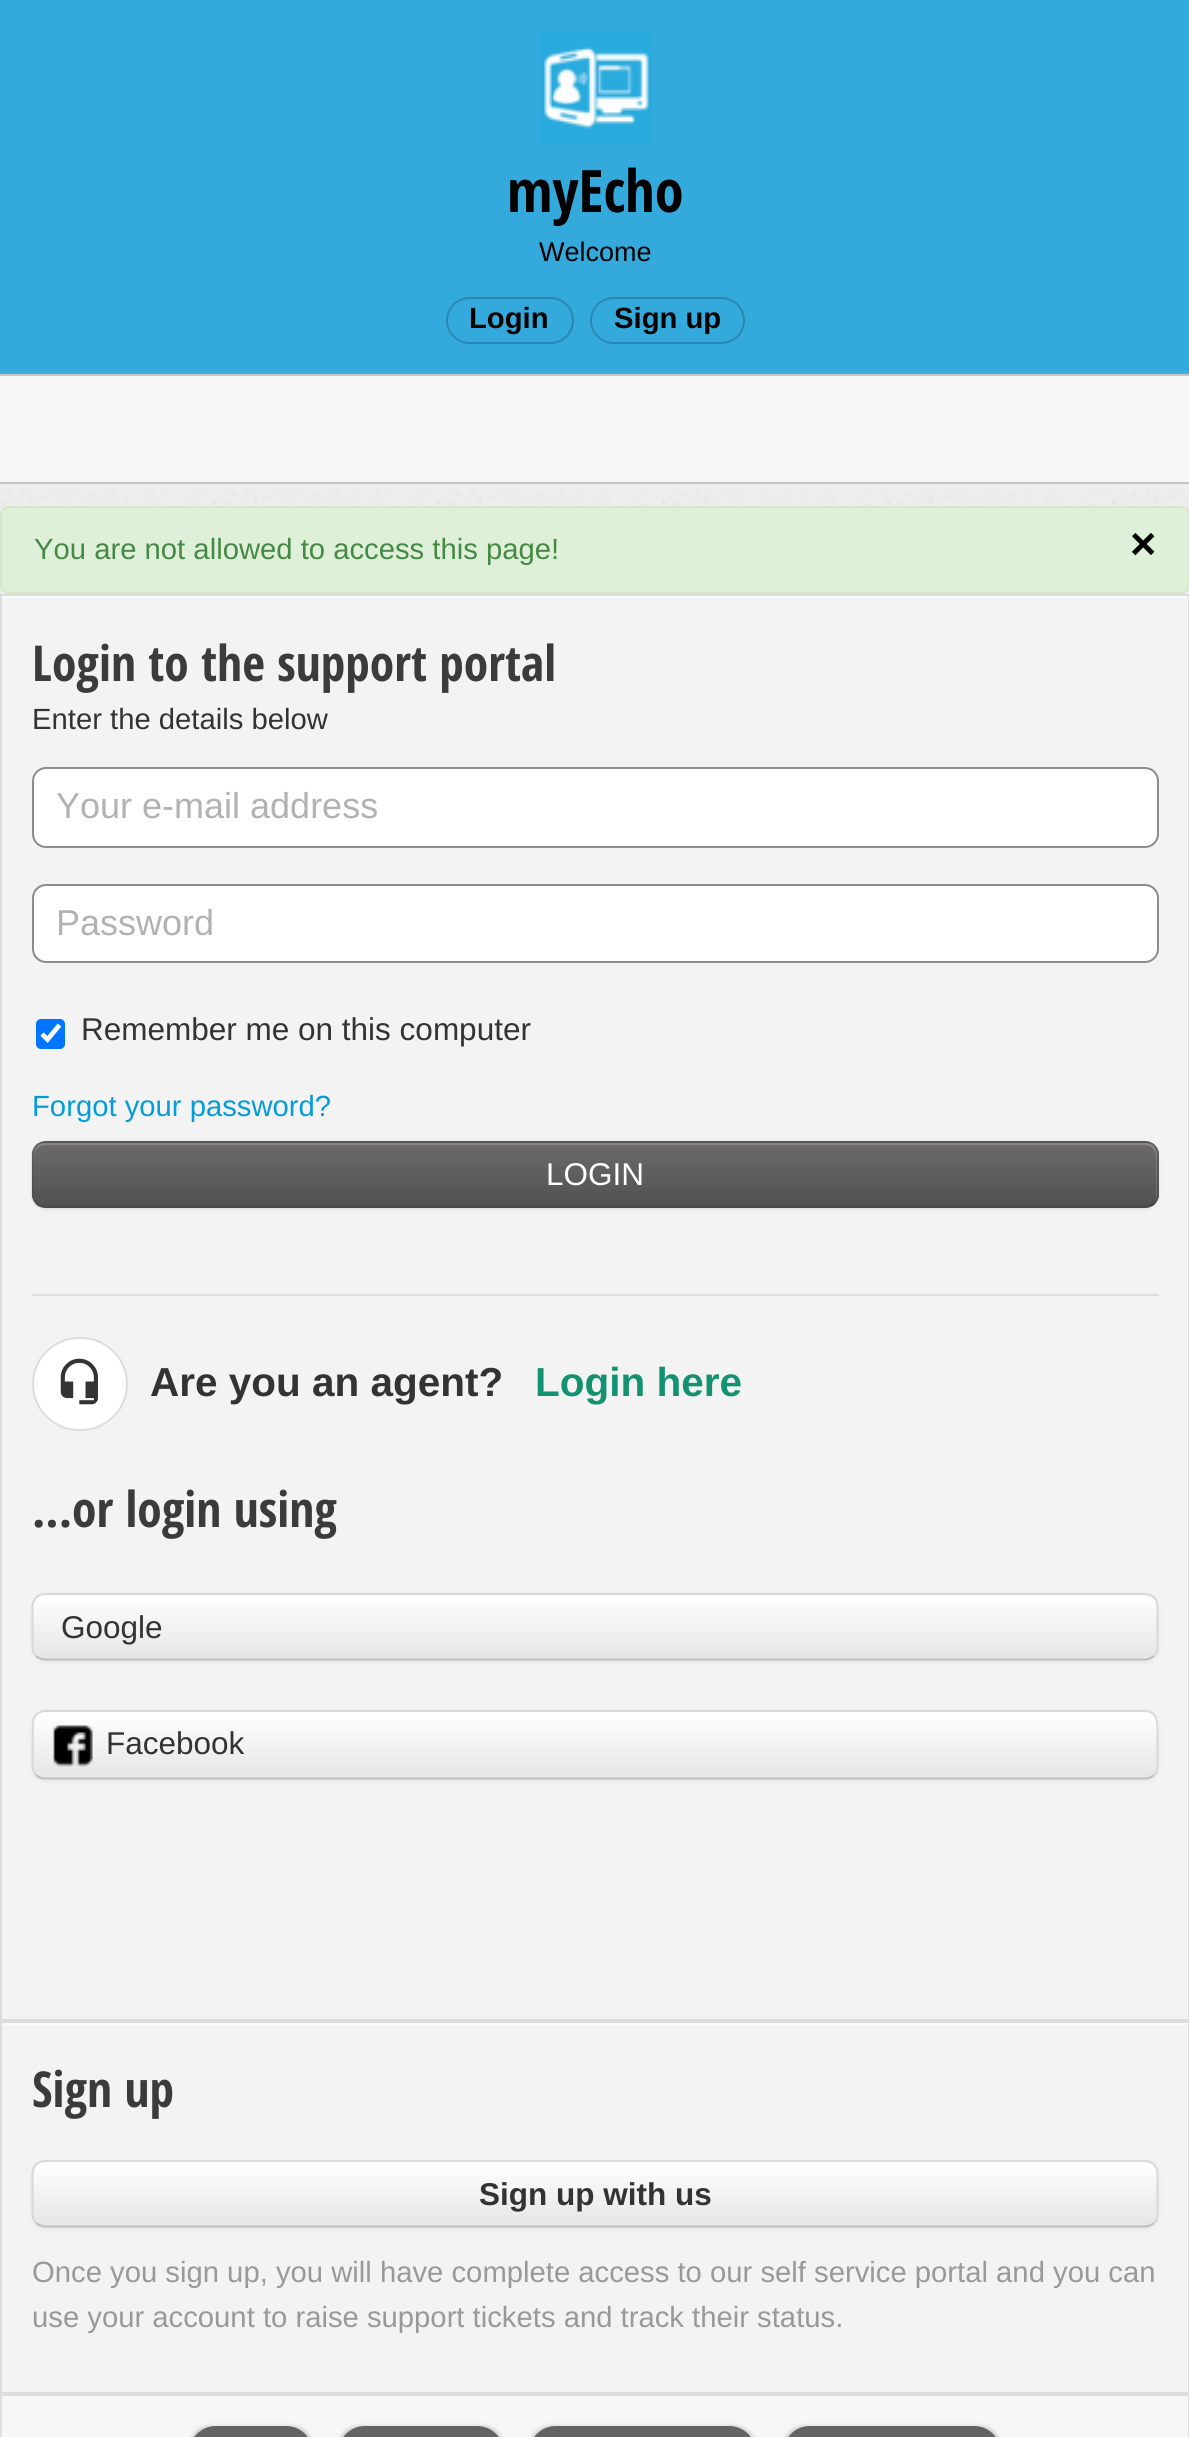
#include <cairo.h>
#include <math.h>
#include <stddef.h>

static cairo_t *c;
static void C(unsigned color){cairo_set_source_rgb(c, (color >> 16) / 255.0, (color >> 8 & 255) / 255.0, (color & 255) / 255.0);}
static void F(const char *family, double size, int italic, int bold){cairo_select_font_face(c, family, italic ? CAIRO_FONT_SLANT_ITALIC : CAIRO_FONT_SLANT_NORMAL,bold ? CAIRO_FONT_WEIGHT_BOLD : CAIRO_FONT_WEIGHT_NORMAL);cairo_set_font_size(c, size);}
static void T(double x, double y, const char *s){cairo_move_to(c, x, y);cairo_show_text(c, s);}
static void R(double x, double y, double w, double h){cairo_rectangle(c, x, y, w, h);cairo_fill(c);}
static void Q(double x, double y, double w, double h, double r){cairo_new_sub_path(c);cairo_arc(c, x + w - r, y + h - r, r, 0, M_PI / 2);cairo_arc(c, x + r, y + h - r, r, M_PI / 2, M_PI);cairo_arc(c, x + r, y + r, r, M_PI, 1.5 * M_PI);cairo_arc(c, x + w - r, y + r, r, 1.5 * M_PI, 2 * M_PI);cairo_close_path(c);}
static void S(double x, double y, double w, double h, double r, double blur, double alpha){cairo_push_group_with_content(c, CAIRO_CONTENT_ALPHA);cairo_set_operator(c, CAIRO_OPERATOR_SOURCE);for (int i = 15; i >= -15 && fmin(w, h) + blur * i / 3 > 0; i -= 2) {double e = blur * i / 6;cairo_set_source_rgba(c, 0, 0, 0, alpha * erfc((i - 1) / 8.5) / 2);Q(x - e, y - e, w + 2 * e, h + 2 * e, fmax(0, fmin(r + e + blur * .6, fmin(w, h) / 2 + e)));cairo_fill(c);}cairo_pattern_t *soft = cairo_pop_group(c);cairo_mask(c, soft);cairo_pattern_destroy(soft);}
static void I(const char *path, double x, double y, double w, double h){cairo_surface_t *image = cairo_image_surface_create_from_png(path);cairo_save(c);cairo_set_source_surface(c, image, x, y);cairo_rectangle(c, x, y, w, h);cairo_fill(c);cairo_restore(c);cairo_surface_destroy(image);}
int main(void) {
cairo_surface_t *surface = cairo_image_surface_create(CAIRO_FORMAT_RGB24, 1189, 2437);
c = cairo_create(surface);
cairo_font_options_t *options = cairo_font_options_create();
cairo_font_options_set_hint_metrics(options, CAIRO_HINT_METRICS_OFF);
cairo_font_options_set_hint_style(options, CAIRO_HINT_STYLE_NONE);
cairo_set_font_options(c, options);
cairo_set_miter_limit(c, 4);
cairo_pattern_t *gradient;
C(0xefefef);
cairo_paint(c);
I("1.png",0,484,1189,1908);
C(0x34aadc);
R(0,0,1189,374);
I("2.png",540,31,113,113);
F("Open Sans Condensed",58.5,0,1);
C(0x000000);
T(507,212,"myEcho");
F("Liberation Sans",27,0,0);
T(539,261,"Welcome");
Q(447,298,126,45,22.5);
C(0x2a88b0);
cairo_stroke(c);
F("Liberation Sans",29.25,0,1);
C(0x000000);
T(469,328,"Login");
Q(591,298,153,45,22.5);
C(0x2a88b0);
cairo_stroke(c);
C(0x000000);
T(614,328,"Sign up");
C(0xeeeeee);
S(0,380,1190,111,0,4.5,1);
C(0xf7f7f7);
R(0,376,1189,106);
C(0xc6c6c6);
R(0,374,1189,2);
R(0,482,1189,2);
C(0xdff0d8);
Q(1,507,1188,86,8);
cairo_fill_preserve(c);
C(0xd6e9c6);
cairo_stroke(c);
F("Liberation Sans",29.25,0,0);
C(0x468847);
T(34,559,"You are not allowed to access this page!");
F("Liberation Sans",45,0,1);
C(0x000000);
T(1130,559,"×");
cairo_set_source_rgba(c,0.957,0.957,0.957,0.9);
R(2,598,1186,1421);
C(0xfbfbfb);
R(2,596,1186,2);
cairo_rectangle(c,1,595,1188,1425);
C(0xdcdcdc);
cairo_stroke(c);
F("Open Sans Condensed",49.5,0,1);
C(0x3b3b3b);
T(32,681,"Login to the support portal");
F("Liberation Sans",29.25,0,0);
C(0x333333);
T(32,729,"Enter the details below");
C(0xffffff);
Q(33,768,1125,79,13);
cairo_fill_preserve(c);
C(0x8c8c8c);
cairo_stroke(c);
F("Liberation Sans",36,0,0);
C(0xb2b2b2);
T(56,818,"Your e-mail address");
C(0xffffff);
Q(33,885,1125,77,13);
cairo_fill_preserve(c);
C(0x8c8c8c);
cairo_stroke(c);
C(0xb2b2b2);
T(56,935,"Password");
C(0x0075ff);
Q(36,1019,29,30,5);
cairo_fill(c);
cairo_new_path(c);
cairo_move_to(c,42,1034);
cairo_line_to(c,47.5,1039.5);
cairo_line_to(c,59.5,1025);
C(0xffffff);
cairo_set_line_width(c,4.7);
cairo_stroke(c);
F("Liberation Sans",31.5,0,0);
C(0x333333);
T(81,1040,"Remember me on this computer");
F("Liberation Sans",29.25,0,0);
C(0x049cdb);
T(32,1116,"Forgot your password?");
C(0x000000);
S(32,1143,1127,68,14,2,.05);
C(0x626060);
Q(32,1141,1127,67,14);
cairo_fill(c);
cairo_save(c);
Q(32,1141,1127,67,14);
cairo_clip(c);
gradient = cairo_pattern_create_linear(595,1143,595,1206);
cairo_pattern_add_color_stop_rgba(gradient,0,0.424,0.416,0.416,1);
cairo_pattern_add_color_stop_rgba(gradient,1,0.322,0.318,0.318,1);
cairo_set_source(c,gradient);
cairo_pattern_destroy(gradient);
R(32,1143,1127,63);
cairo_restore(c);
cairo_set_source_rgba(c,1,1,1,0.2);
cairo_new_path(c);
cairo_move_to(c,45,1145);
cairo_line_to(c,1145,1145);
cairo_curve_to(c,1151,1145,1156,1150,1156,1156);
cairo_line_to(c,1156,1197);
cairo_line_to(c,1155,1201);
cairo_curve_to(c,1156,1199,1157,1197,1157,1195);
cairo_line_to(c,1157,1154);
cairo_curve_to(c,1157,1148,1152,1143,1146,1143);
cairo_line_to(c,45,1143);
cairo_curve_to(c,39,1143,34,1148,34,1154);
cairo_line_to(c,34,1156);
cairo_curve_to(c,34,1150,39,1145,45,1145);
cairo_close_path(c);
cairo_fill(c);
cairo_new_path(c);
cairo_move_to(c,1154,1203.5);
cairo_curve_to(c,1151.5,1206,1148.5,1207,1145,1207);
cairo_line_to(c,45,1207);
cairo_curve_to(c,41.5,1207,38.5,1206,36,1203.5);
cairo_set_source_rgba(c,0,0,0,0.25);
cairo_set_line_width(c,2.2);
cairo_stroke(c);
cairo_new_path(c);
cairo_move_to(c,36,1203.5);
cairo_curve_to(c,34,1201,32.5,1198,32.5,1195);
cairo_line_to(c,32.5,1154);
cairo_curve_to(c,32.5,1151,34,1148,36,1145.5);
cairo_curve_to(c,38.5,1143,41.5,1142,45,1142);
cairo_line_to(c,1145,1142);
cairo_curve_to(c,1148.5,1142,1151.5,1143,1154,1145.5);
cairo_curve_to(c,1156.5,1148,1157.5,1151,1157.5,1154);
cairo_line_to(c,1157.5,1195);
cairo_curve_to(c,1157.5,1198,1156.5,1201,1154,1203.5);
cairo_set_source_rgba(c,0,0,0,0.1);
cairo_stroke(c);
F("Liberation Sans",31.5,0,0);
C(0xffffff);
T(546,1185,"LOGIN");
C(0xdddddd);
R(32,1294,1127,2);
C(0xffffff);
Q(33,1338,94,92,46);
cairo_fill_preserve(c);
C(0xdddddd);
cairo_set_line_width(c,2);
cairo_stroke(c);
I("3.png",60,1358,38,47);
F("Liberation Sans",40.5,0,1);
C(0x333333);
T(150,1396,"Are you an agent?");
C(0x139272);
T(535,1396,"Login here");
F("Open Sans Condensed",49.5,0,1);
C(0x3b3b3b);
T(32,1527,"...or login using");
C(0x000000);
S(32,1595,1127,68,14,2,.05);
C(0xf5f5f5);
Q(32,1593,1127,68,14);
cairo_fill(c);
cairo_save(c);
Q(32,1593,1127,68,14);
cairo_clip(c);
gradient = cairo_pattern_create_linear(595,1595,595,1658);
cairo_pattern_add_color_stop_rgba(gradient,0,1,1,1,1);
cairo_pattern_add_color_stop_rgba(gradient,1,0.902,0.902,0.902,1);
cairo_set_source(c,gradient);
cairo_pattern_destroy(gradient);
R(32,1595,1127,63);
cairo_restore(c);
cairo_set_source_rgba(c,1,1,1,0.2);
cairo_new_path(c);
cairo_move_to(c,45,1598);
cairo_line_to(c,1145,1598);
cairo_curve_to(c,1151,1598,1156,1603,1156,1609);
cairo_line_to(c,1156,1649);
cairo_line_to(c,1155,1653);
cairo_curve_to(c,1156,1651,1157,1649,1157,1647);
cairo_line_to(c,1157,1606);
cairo_curve_to(c,1157,1600,1152,1595,1146,1595);
cairo_line_to(c,45,1595);
cairo_curve_to(c,39,1595,34,1600,34,1606);
cairo_line_to(c,34,1609);
cairo_curve_to(c,34,1603,39,1598,45,1598);
cairo_close_path(c);
cairo_fill(c);
cairo_new_path(c);
cairo_move_to(c,1154,1656);
cairo_curve_to(c,1151.5,1658,1148.5,1659.5,1145,1659.5);
cairo_line_to(c,45,1659.5);
cairo_curve_to(c,41.5,1659.5,38.5,1658,36,1656);
C(0xbfbfbf);
cairo_set_line_width(c,2.2);
cairo_stroke(c);
cairo_new_path(c);
cairo_move_to(c,36,1656);
cairo_curve_to(c,34,1653.5,32.5,1650.5,32.5,1647);
cairo_line_to(c,32.5,1606.5);
cairo_curve_to(c,32.5,1603,34,1600,36,1597.5);
cairo_curve_to(c,38.5,1595.5,41.5,1594,45,1594);
cairo_line_to(c,1145,1594);
cairo_curve_to(c,1148.5,1594,1151.5,1595.5,1154,1597.5);
cairo_curve_to(c,1156.5,1600,1157.5,1603,1157.5,1606.5);
cairo_line_to(c,1157.5,1647);
cairo_curve_to(c,1157.5,1650.5,1156.5,1653.5,1154,1656);
C(0xd9d9d9);
cairo_stroke(c);
F("Liberation Sans",31.5,0,0);
C(0x333333);
T(61,1638,"Google");
C(0x000000);
S(32,1712,1127,70,14,2,.05);
C(0xf5f5f5);
Q(32,1710,1127,70,14);
cairo_fill(c);
cairo_save(c);
Q(32,1710,1127,70,14);
cairo_clip(c);
gradient = cairo_pattern_create_linear(595,1712,595,1778);
cairo_pattern_add_color_stop_rgba(gradient,0,1,1,1,1);
cairo_pattern_add_color_stop_rgba(gradient,1,0.902,0.902,0.902,1);
cairo_set_source(c,gradient);
cairo_pattern_destroy(gradient);
R(32,1712,1127,66);
cairo_restore(c);
cairo_set_source_rgba(c,1,1,1,0.2);
cairo_new_path(c);
cairo_move_to(c,45,1714);
cairo_line_to(c,1145,1714);
cairo_curve_to(c,1151,1714,1156,1720,1156,1726);
cairo_line_to(c,1156,1768);
cairo_curve_to(c,1156,1770,1156,1772,1155,1774);
cairo_curve_to(c,1156,1772,1157,1769,1157,1767);
cairo_line_to(c,1157,1723);
cairo_curve_to(c,1157,1717,1152,1712,1146,1712);
cairo_line_to(c,45,1712);
cairo_curve_to(c,39,1712,34,1717,34,1723);
cairo_line_to(c,34,1726);
cairo_curve_to(c,34,1720,39,1714,45,1714);
cairo_close_path(c);
cairo_fill(c);
cairo_new_path(c);
cairo_move_to(c,1154,1775);
cairo_curve_to(c,1151.5,1777.5,1148.5,1778.5,1145,1778.5);
cairo_line_to(c,45,1778.5);
cairo_curve_to(c,41.5,1778.5,38.5,1777.5,36,1775);
C(0xbfbfbf);
cairo_stroke(c);
cairo_new_path(c);
cairo_move_to(c,36,1775);
cairo_curve_to(c,32,1770.5,32.5,1765,32.5,1759);
cairo_line_to(c,33,1721);
cairo_curve_to(c,34,1715.5,39,1711,45,1711);
cairo_line_to(c,1146.5,1711);
cairo_curve_to(c,1157.5,1712.5,1157.5,1722,1157.5,1730.5);
cairo_line_to(c,1157.5,1759);
cairo_curve_to(c,1157.5,1765,1158.5,1770.5,1154,1775);
C(0xd9d9d9);
cairo_stroke(c);
I("4.png",53,1725,40,42);
C(0x333333);
T(106,1754,"Facebook");
cairo_set_source_rgba(c,0.957,0.957,0.957,0.9);
R(2,2025,1186,367);
C(0xfbfbfb);
R(2,2023,1186,2);
cairo_rectangle(c,1,2022,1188,371);
C(0xdcdcdc);
cairo_set_line_width(c,2);
cairo_stroke(c);
F("Open Sans Condensed",49.5,0,1);
C(0x3b3b3b);
T(32,2107,"Sign up");
C(0x000000);
S(32,2162,1127,68,14,2,.05);
C(0xf5f5f5);
Q(32,2160,1127,68,14);
cairo_fill(c);
cairo_save(c);
Q(32,2160,1127,68,14);
cairo_clip(c);
gradient = cairo_pattern_create_linear(595,2162,595,2225);
cairo_pattern_add_color_stop_rgba(gradient,0,1,1,1,1);
cairo_pattern_add_color_stop_rgba(gradient,1,0.902,0.902,0.902,1);
cairo_set_source(c,gradient);
cairo_pattern_destroy(gradient);
R(32,2162,1127,63);
cairo_restore(c);
cairo_set_source_rgba(c,1,1,1,0.2);
cairo_new_path(c);
cairo_move_to(c,45,2164);
cairo_line_to(c,1145,2164);
cairo_curve_to(c,1151,2164,1156,2170,1156,2176);
cairo_line_to(c,1156,2216);
cairo_line_to(c,1155,2220);
cairo_curve_to(c,1156,2218,1157,2216,1157,2214);
cairo_line_to(c,1157,2173);
cairo_curve_to(c,1157,2167,1152,2162,1146,2162);
cairo_line_to(c,45,2162);
cairo_curve_to(c,39,2162,34,2167,34,2173);
cairo_line_to(c,34,2176);
cairo_curve_to(c,34,2170,39,2164,45,2164);
cairo_close_path(c);
cairo_fill(c);
cairo_new_path(c);
cairo_move_to(c,1154,2223);
cairo_curve_to(c,1151.5,2225,1148.5,2226.5,1145,2226.5);
cairo_line_to(c,45,2226.5);
cairo_curve_to(c,41.5,2226.5,38.5,2225,36,2223);
C(0xbfbfbf);
cairo_set_line_width(c,2.2);
cairo_stroke(c);
cairo_new_path(c);
cairo_move_to(c,36,2223);
cairo_curve_to(c,34,2220.5,32.5,2217.5,32.5,2214);
cairo_line_to(c,32.5,2173.5);
cairo_curve_to(c,32.5,2170,34,2167,36,2164.5);
cairo_curve_to(c,38.5,2162.5,41.5,2161,45,2161);
cairo_line_to(c,1145,2161);
cairo_curve_to(c,1148.5,2161,1151.5,2162.5,1154,2164.5);
cairo_curve_to(c,1156.5,2167,1157.5,2170,1157.5,2173.5);
cairo_line_to(c,1157.5,2214);
cairo_curve_to(c,1157.5,2217.5,1156.5,2220.5,1154,2223);
C(0xd9d9d9);
cairo_stroke(c);
F("Liberation Sans",31.5,0,1);
C(0x333333);
T(479,2205,"Sign up with us");
F("Liberation Sans",29.25,0,0);
C(0x999999);
T(32,2282,"Once you sign up, you will have complete access to our self service portal and you can");
T(32,2327,"use your account to raise support tickets and track their status.");
C(0xf7f7f7);
cairo_rectangle(c,1,2395,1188,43);
cairo_fill_preserve(c);
C(0xdedede);
cairo_set_line_width(c,2);
cairo_stroke(c);
C(0xc9c9c9);
S(189,2426,124,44,27,2,1);
C(0x636363);
Q(189,2426,124,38,27);
cairo_fill(c);
C(0xc9c9c9);
S(338,2426,166,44,27,2,1);
C(0x636363);
Q(338,2426,166,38,27);
cairo_fill(c);
C(0xc9c9c9);
S(529,2426,227,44,27,2,1);
C(0x636363);
Q(529,2426,227,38,27);
cairo_fill(c);
C(0xc9c9c9);
S(783,2426,218,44,27,2,1);
C(0x636363);
Q(783,2426,218,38,27);
cairo_fill(c);
cairo_surface_write_to_png(surface, "o.png");
cairo_font_options_destroy(options);
cairo_destroy(c);
cairo_surface_destroy(surface);
return 0;
}
